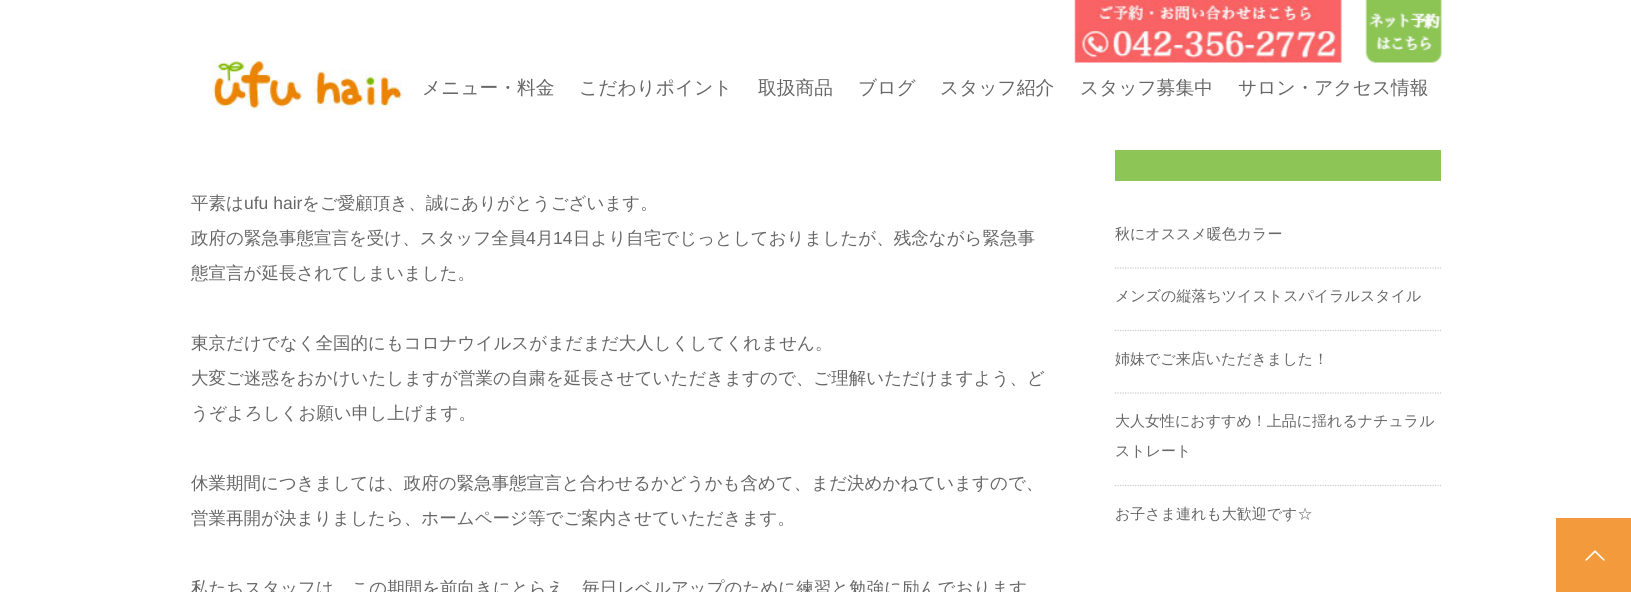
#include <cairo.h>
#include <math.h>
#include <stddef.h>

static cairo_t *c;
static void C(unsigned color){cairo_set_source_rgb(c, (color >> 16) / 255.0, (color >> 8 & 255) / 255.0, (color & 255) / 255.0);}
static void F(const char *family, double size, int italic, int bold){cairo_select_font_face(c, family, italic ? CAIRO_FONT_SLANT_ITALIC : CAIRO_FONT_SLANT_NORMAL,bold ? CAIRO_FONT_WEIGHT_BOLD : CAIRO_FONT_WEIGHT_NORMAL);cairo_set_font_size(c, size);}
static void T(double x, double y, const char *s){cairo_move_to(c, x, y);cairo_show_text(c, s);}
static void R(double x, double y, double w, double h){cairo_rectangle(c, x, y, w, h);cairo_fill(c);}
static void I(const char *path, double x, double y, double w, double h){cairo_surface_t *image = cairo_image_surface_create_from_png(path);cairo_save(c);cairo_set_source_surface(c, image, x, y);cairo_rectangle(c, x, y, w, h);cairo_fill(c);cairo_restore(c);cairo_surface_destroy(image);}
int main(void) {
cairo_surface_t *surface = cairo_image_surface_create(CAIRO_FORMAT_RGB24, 1631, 592);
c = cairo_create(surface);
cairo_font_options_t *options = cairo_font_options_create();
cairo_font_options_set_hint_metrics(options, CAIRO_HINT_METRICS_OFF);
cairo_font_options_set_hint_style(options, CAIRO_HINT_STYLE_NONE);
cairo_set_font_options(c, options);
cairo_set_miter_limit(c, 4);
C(0xffffff);
cairo_paint(c);
I("1.png",1074,0,268,63);
I("2.png",1365,0,77,63);
I("3.png",211,60,191,50);
F("WenQuanYi Zen Hei Medium",18.75,0,0);
C(0x666666);
T(422,94,"メニュー・料金");
T(579,94,"こだわりポイント");
T(758,94,"取扱商品");
T(858,94,"ブログ");
T(940,94,"スタッフ紹介");
T(1080,94,"スタッフ募集中");
T(1238,94,"サロン・アクセス情報");
F("WenQuanYi Zen Hei Medium",17.5,0,0);
T(191,209,"平素は");
F("Liberation Sans",17.5,0,0);
T(244,209,"ufu hair");
F("WenQuanYi Zen Hei Medium",17.5,0,0);
T(302,209,"をご愛顧頂き、誠にありがとうございます。");
T(191,244,"政府の緊急事態宣言を受け、スタッフ全員");
F("Liberation Sans",17.5,0,0);
T(526,244,"4");
F("WenQuanYi Zen Hei Medium",17.5,0,0);
T(536,244,"月");
F("Liberation Sans",17.5,0,0);
T(553,244,"14");
F("WenQuanYi Zen Hei Medium",17.5,0,0);
T(573,244,"日より自宅でじっとしておりましたが、残念ながら緊急事");
T(191,279,"態宣言が延長されてしまいました。");
T(191,349,"東京だけでなく全国的にもコロナウイルスがまだまだ大人しくしてくれません。");
T(191,384,"大変ご迷惑をおかけいたしますが営業の自粛を延長させていただきますので、ご理解いただけますよう、ど");
T(191,419,"うぞよろしくお願い申し上げます。");
T(191,489,"休業期間につきましては、政府の緊急事態宣言と合わせるかどうかも含めて、まだ決めかねていますので、");
T(191,524,"営業再開が決まりましたら、ホームページ等でご案内させていただきます。");
T(191,594,"私たちスタッフは、この期間を前向きにとらえ、毎日レベルアップのために練習と勉強に励んでおります");
C(0x8dc556);
R(1115,150,326,31);
cairo_new_path(c);
cairo_move_to(c,1115,268);
cairo_line_to(c,1441,268);
C(0xcccccc);
cairo_set_line_width(c,1.2);
cairo_set_dash(c,(double[]){1.25,1.25},2,0);
cairo_stroke(c);
F("WenQuanYi Zen Hei Medium",15,0,0);
C(0x666666);
T(1115,239,"秋にオススメ暖色カラー");
cairo_new_path(c);
cairo_move_to(c,1115,330.5);
cairo_line_to(c,1441,330.5);
C(0xcccccc);
cairo_stroke(c);
C(0x666666);
T(1115,301,"メンズの縦落ちツイストスパイラルスタイル");
cairo_new_path(c);
cairo_move_to(c,1115,393);
cairo_line_to(c,1441,393);
C(0xcccccc);
cairo_stroke(c);
C(0x666666);
T(1115,364,"姉妹でご来店いただきました！");
cairo_new_path(c);
cairo_move_to(c,1115,485.5);
cairo_line_to(c,1441,485.5);
C(0xcccccc);
cairo_stroke(c);
C(0x666666);
T(1115,426,"大人女性におすすめ！上品に揺れるナチュラル");
T(1115,456,"ストレート");
T(1115,519,"お子さま連れも大歓迎です☆");
C(0xf39a3c);
R(1556,518,75,74);
I("4.png",1585,550,20,11);
cairo_surface_write_to_png(surface, "o.png");
cairo_font_options_destroy(options);
cairo_destroy(c);
cairo_surface_destroy(surface);
return 0;
}
